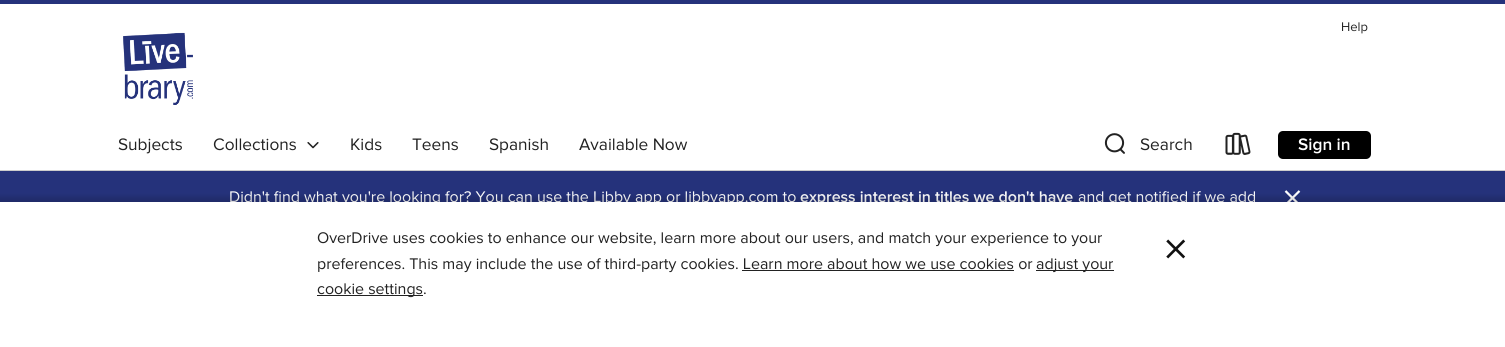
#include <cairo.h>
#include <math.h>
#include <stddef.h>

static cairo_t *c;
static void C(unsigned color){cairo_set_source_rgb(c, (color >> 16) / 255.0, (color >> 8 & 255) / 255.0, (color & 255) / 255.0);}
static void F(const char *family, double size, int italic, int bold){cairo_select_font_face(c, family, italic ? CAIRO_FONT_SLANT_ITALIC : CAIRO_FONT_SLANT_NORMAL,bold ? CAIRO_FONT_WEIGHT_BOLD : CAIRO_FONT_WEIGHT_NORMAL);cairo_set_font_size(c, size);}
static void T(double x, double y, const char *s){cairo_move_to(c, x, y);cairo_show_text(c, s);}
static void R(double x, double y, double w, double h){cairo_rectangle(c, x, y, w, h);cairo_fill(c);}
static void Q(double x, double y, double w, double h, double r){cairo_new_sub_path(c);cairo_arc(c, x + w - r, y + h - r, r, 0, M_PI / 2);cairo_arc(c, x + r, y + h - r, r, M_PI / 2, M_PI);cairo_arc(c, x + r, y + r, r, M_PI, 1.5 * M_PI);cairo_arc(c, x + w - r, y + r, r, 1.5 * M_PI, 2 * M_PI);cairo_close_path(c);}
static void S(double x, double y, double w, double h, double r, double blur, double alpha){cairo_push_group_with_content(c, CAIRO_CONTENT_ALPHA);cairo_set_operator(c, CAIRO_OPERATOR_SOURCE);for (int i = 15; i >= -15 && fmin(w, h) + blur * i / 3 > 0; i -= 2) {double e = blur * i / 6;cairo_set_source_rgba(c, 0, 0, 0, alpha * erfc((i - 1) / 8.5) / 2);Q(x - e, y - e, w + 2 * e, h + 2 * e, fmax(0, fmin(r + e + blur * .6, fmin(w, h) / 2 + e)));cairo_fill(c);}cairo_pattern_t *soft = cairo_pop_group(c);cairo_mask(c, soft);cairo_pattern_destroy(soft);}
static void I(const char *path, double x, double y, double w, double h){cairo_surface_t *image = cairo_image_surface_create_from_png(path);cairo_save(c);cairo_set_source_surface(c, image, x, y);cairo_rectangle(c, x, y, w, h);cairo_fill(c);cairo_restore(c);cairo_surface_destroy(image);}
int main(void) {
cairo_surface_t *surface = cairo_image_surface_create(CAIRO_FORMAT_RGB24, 1505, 347);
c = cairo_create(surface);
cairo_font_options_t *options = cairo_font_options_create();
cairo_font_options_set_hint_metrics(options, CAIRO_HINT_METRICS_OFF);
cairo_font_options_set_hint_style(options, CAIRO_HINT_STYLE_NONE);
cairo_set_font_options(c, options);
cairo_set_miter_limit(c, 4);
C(0xffffff);
cairo_paint(c);
C(0x25327b);
R(0,0,1505,4);
C(0xcccccc);
R(0,170,1505,1);
F("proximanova",13,0,0);
C(0x222222);
T(1341,31,"Help");
I("1.png",123,32,70,73);
F("proximanova",17.25,0,0);
T(118,150,"Subjects");
T(213,150,"Collections");
I("2.png",307,142,12,7);
T(350,150,"Kids");
T(412,150,"Teens");
T(489,150,"Spanish");
T(579,150,"Available Now");
I("3.png",1104,133,21,21);
T(1140,150,"Search");
I("4.png",1225,132,26,23);
C(0x000000);
Q(1278,131,93,28,5);
cairo_fill(c);
F("Proxima Nova SemiBold",17.25,0,0);
C(0xffffff);
T(1298,150,"Sign in");
C(0x25327b);
R(0,171,1505,31);
F("proximanova",16,0,0);
C(0xffffff);
T(229,202,"Didn't find what you're looking for? You can use the Libby app or libbyapp.com to");
F("Proxima Nova SemiBold",16,0,0);
T(800,202,"express interest in titles we don't have");
F("proximanova",16,0,0);
T(1078,202,"and get notified if we add");
F("proximanova",42,0,0);
T(1282,212,"×");
C(0x000000);
S(-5,197,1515,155,0,2.5,.15);
C(0xffffff);
R(0,202,1505,145);
F("proximanova",16,0,0);
C(0x222222);
T(317,243,"OverDrive uses cookies to enhance our website, learn more about our users, and match your experience to your");
T(317,269,"preferences. This may include the use of third-party cookies. Learn more about how we use cookies or");
R(742,270,272,1);
R(1036,270,78,1);
T(1036,269,"adjust your");
R(317,295,106,1);
T(317,294,"cookie settings.");
F("proximanova",51,0,0);
C(0x111111);
T(1163,266,"×");
cairo_surface_write_to_png(surface, "o.png");
cairo_font_options_destroy(options);
cairo_destroy(c);
cairo_surface_destroy(surface);
return 0;
}
